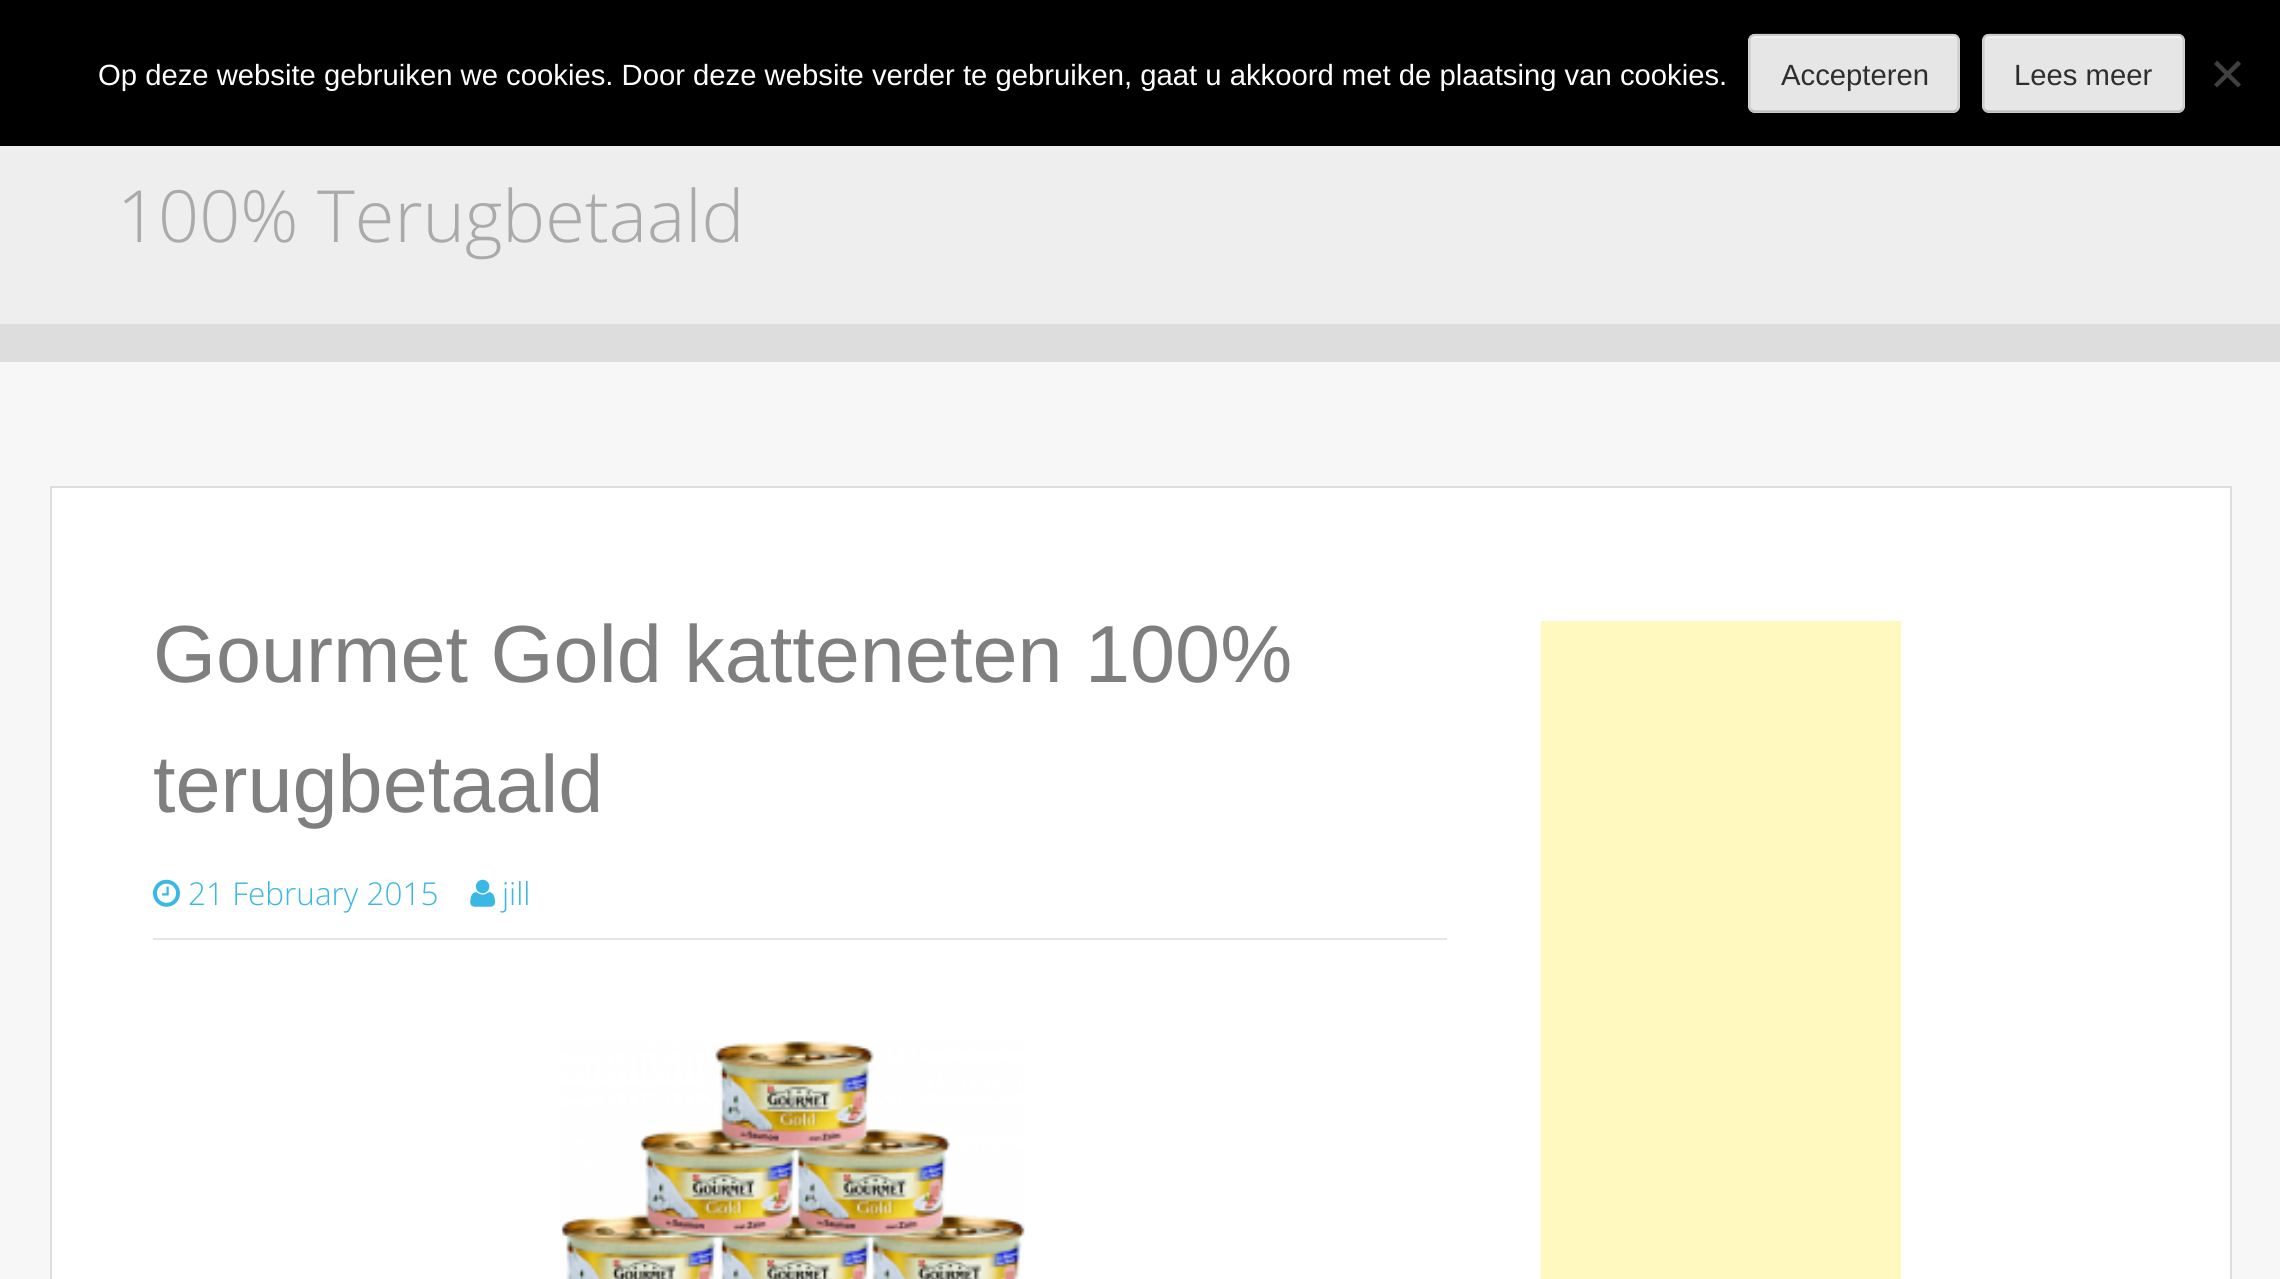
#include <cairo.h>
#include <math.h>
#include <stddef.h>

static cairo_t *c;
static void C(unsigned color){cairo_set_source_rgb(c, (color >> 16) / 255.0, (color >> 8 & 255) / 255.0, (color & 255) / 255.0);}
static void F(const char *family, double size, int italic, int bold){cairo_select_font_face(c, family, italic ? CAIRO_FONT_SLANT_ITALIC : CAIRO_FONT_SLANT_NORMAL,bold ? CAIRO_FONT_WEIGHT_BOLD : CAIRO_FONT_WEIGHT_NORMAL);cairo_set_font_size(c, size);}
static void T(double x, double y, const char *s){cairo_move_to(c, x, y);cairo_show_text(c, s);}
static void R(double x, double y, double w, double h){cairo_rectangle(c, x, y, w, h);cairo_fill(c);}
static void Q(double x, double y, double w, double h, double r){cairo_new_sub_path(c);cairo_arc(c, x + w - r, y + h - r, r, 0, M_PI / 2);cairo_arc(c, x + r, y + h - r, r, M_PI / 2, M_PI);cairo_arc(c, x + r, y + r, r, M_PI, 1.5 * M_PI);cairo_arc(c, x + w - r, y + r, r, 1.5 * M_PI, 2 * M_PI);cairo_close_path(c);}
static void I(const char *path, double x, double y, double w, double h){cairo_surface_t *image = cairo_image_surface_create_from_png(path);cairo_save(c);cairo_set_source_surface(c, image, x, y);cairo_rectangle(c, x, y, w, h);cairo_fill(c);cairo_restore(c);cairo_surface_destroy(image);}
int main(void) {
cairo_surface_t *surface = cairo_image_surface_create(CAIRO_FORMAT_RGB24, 2280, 1279);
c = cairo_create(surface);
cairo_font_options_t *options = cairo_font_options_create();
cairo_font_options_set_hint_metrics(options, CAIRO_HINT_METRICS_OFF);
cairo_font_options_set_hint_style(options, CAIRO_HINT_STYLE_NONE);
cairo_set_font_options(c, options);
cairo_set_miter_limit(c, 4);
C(0xf7f7f7);
cairo_paint(c);
C(0x000000);
R(0,0,2280,146);
F("Liberation Sans",29.25,0,0);
C(0xffffff);
T(98,85,"Op deze website gebruiken we cookies. Door deze website verder te gebruiken, gaat u akkoord met de plaatsing van cookies.");
C(0xe6e6e6);
Q(1748,34,212,79,7);
cairo_fill(c);
C(0xf3f3f3);
cairo_new_path(c);
cairo_move_to(c,1755,38);
cairo_line_to(c,1953,38);
cairo_curve_to(c,1955,38,1958,40,1958,43);
cairo_line_to(c,1958,41);
cairo_curve_to(c,1958,38,1956,36,1953,36);
cairo_line_to(c,1756,36);
cairo_curve_to(c,1754,36,1752,38,1751,40);
cairo_curve_to(c,1752,39,1754,38,1755,38);
cairo_close_path(c);
cairo_fill(c);
cairo_new_path(c);
cairo_move_to(c,1957,109.5);
cairo_curve_to(c,1956,111,1954.5,111.5,1953,111.5);
cairo_line_to(c,1755,111.5);
cairo_curve_to(c,1753.5,111.5,1752,111,1751,109.5);
C(0xbbbbbb);
cairo_set_line_width(c,2.2);
cairo_stroke(c);
cairo_new_path(c);
cairo_move_to(c,1751,109.5);
cairo_curve_to(c,1750,108.5,1749.5,107,1749.5,106);
cairo_line_to(c,1749.5,40.5);
cairo_curve_to(c,1749.5,39,1750,37.5,1751,36.5);
cairo_curve_to(c,1752,35.5,1753.5,35,1755,35);
cairo_line_to(c,1953,35);
cairo_curve_to(c,1954.5,35,1956,35.5,1957,36.5);
cairo_curve_to(c,1958,37.5,1958.5,39,1958.5,40.5);
cairo_line_to(c,1958.5,106);
cairo_curve_to(c,1958.5,107,1958,108.5,1957,109.5);
C(0xcccccc);
cairo_stroke(c);
C(0x2e2e2e);
T(1781,85,"Accepteren");
C(0xe6e6e6);
Q(1982,34,203,79,7);
cairo_fill(c);
C(0xf3f3f3);
cairo_new_path(c);
cairo_move_to(c,1989,38);
cairo_line_to(c,2178,38);
cairo_curve_to(c,2180,38,2182,40,2182,43);
cairo_line_to(c,2182,108);
cairo_curve_to(c,2183,107,2183,106,2183,105);
cairo_line_to(c,2183,41);
cairo_curve_to(c,2183,38,2181,36,2178,36);
cairo_line_to(c,1990,36);
cairo_curve_to(c,1988,36,1986,38,1985,40);
cairo_curve_to(c,1986,39,1988,38,1989,38);
cairo_close_path(c);
cairo_fill(c);
cairo_new_path(c);
cairo_move_to(c,2182,109.5);
cairo_curve_to(c,2181,111,2179.5,111.5,2178,111.5);
cairo_line_to(c,1989,111.5);
cairo_curve_to(c,1987.5,111.5,1986,111,1985,109.5);
C(0xbbbbbb);
cairo_stroke(c);
cairo_new_path(c);
cairo_move_to(c,1985,109.5);
cairo_curve_to(c,1984,108.5,1983.5,107,1983.5,106);
cairo_line_to(c,1983.5,40.5);
cairo_curve_to(c,1983.5,39,1984,37.5,1985,36.5);
cairo_curve_to(c,1986,35.5,1987.5,35,1989,35);
cairo_line_to(c,2178,35);
cairo_curve_to(c,2179.5,35,2181,35.5,2182,36.5);
cairo_curve_to(c,2183,37.5,2183.5,39,2183.5,40.5);
cairo_line_to(c,2183.5,106);
cairo_curve_to(c,2183.5,107,2183,108.5,2182,109.5);
C(0xcccccc);
cairo_stroke(c);
C(0x2e2e2e);
T(2014,85,"Lees meer");
C(0x404040);
cairo_new_path(c);
cairo_move_to(c,2238,60.5);
cairo_line_to(c,2241,64);
cairo_line_to(c,2217,87.5);
cairo_line_to(c,2214,84.5);
cairo_close_path(c);
cairo_fill(c);
cairo_new_path(c);
cairo_move_to(c,2214,64);
cairo_line_to(c,2217,60.5);
cairo_line_to(c,2241,84.5);
cairo_line_to(c,2238,87.5);
cairo_close_path(c);
cairo_fill(c);
C(0xeeeeee);
R(0,146,2280,178);
F("Open Sans Light",72,0,0);
C(0xaaaaaa);
T(117,242,"100% Terugbetaald");
C(0xdddddd);
R(0,324,2280,38);
C(0xffffff);
cairo_rectangle(c,51,487,2180,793);
cairo_fill_preserve(c);
C(0xdddddd);
cairo_set_line_width(c,2);
cairo_stroke(c);
F("Liberation Sans",81,0,0);
C(0x7f7f7f);
T(153,682,"Gourmet Gold katteneten 100%");
T(153,812,"terugbetaald");
C(0xe5e5e5);
R(153,938,1294,2);
I("1.png",153,879,27,28);
F("Open Sans Light",31.5,0,0);
C(0x39b7e5);
T(188,905,"21 February 2015");
I("2.png",470,879,25,28);
T(502,905,"jill");
I("3.png",560,1041,465,238);
C(0xfff9c0);
R(1541,621,360,658);
cairo_surface_write_to_png(surface, "o.png");
cairo_font_options_destroy(options);
cairo_destroy(c);
cairo_surface_destroy(surface);
return 0;
}
